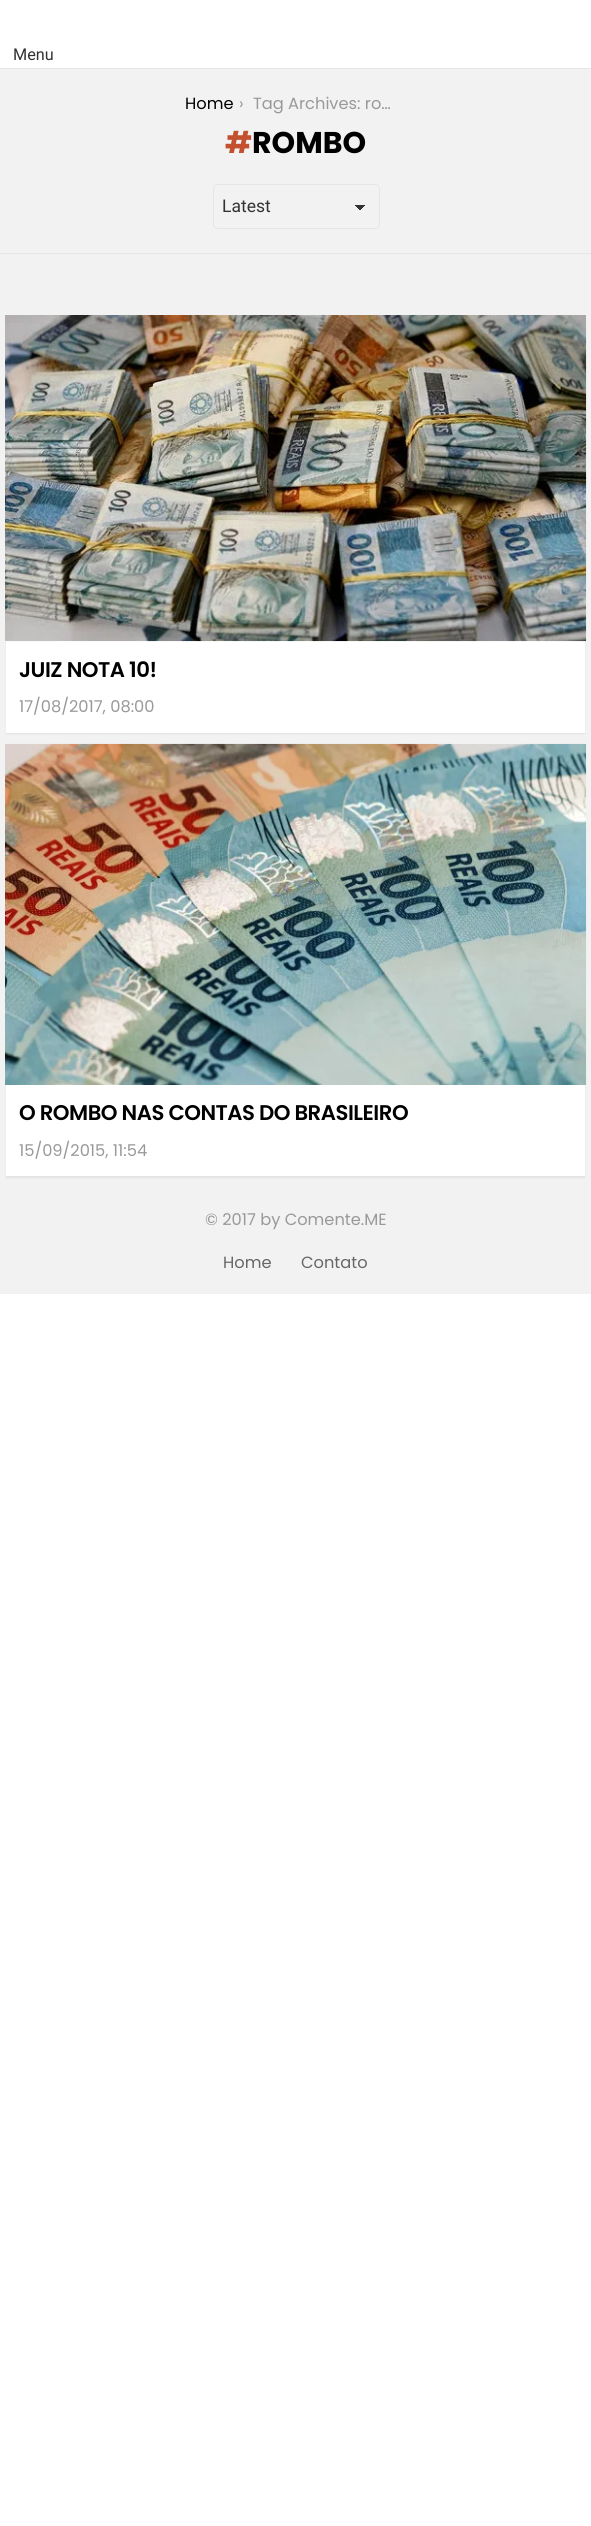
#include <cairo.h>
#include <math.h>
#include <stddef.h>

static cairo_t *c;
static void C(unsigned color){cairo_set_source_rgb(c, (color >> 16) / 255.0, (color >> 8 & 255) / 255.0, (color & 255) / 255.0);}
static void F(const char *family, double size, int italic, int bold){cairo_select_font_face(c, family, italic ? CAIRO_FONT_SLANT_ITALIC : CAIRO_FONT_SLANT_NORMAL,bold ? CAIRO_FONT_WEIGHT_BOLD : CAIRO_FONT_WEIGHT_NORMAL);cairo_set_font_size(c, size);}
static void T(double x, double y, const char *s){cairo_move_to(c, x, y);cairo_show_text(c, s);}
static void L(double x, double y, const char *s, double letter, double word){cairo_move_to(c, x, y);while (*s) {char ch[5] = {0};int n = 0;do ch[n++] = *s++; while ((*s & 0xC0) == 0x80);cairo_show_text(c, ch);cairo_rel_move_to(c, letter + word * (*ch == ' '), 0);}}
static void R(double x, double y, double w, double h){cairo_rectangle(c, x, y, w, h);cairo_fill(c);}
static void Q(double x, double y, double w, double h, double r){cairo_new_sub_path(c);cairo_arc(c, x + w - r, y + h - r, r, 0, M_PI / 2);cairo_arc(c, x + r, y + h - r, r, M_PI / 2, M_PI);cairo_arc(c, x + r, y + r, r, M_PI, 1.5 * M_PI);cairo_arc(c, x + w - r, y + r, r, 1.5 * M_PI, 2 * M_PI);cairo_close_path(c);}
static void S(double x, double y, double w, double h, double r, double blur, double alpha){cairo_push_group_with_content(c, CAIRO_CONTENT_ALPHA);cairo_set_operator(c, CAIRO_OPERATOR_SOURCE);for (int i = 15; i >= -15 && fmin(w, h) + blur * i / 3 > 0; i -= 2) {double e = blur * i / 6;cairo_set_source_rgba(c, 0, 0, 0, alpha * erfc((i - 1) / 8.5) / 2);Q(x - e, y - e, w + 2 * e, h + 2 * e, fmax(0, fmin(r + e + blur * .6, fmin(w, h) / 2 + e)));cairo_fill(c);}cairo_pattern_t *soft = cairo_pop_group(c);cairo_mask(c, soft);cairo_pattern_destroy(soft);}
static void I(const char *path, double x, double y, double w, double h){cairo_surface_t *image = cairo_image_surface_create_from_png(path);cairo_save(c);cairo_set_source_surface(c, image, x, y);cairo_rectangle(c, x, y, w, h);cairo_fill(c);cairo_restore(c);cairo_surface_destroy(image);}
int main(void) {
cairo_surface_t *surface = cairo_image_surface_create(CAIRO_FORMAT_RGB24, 591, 2526);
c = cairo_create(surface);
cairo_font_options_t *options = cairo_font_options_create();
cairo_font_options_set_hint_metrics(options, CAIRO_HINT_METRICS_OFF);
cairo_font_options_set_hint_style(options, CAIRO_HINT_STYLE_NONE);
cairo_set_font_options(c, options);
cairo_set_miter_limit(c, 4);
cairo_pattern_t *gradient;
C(0xffffff);
cairo_paint(c);
F("Roboto",16.25,0,0);
C(0x333333);
T(13,60,"Menu");
C(0xe6e6e6);
R(0,68,591,1);
C(0xf2f2f2);
R(0,69,591,184);
C(0xe6e6e6);
R(0,253,591,1);
F("Poppins",16.25,0,0);
C(0x000000);
T(185,109,"Home");
C(0x999999);
T(239,109,"›");
T(253,109,"Tag Archives: ro…");
F("Poppins",30,0,1);
C(0xc3512f);
T(225,153,"#");
C(0x000000);
T(252,153,"ROMBO");
gradient = cairo_pattern_create_linear(360,205,366,210);
cairo_pattern_add_color_stop_rgba(gradient,.5,0.2,0.2,0.2,1);
cairo_pattern_add_color_stop_rgba(gradient,.5,0.949,0.949,0.949,1);
cairo_set_source(c,gradient);
cairo_pattern_destroy(gradient);
R(360,205,6,5);
gradient = cairo_pattern_create_linear(354,210,360,205);
cairo_pattern_add_color_stop_rgba(gradient,.5,0.949,0.949,0.949,1);
cairo_pattern_add_color_stop_rgba(gradient,.5,0.2,0.2,0.2,1);
cairo_set_source(c,gradient);
cairo_pattern_destroy(gradient);
R(354,205,6,5);
Q(213.5,184.5,166,44,4.5);
C(0xe6e6e6);
cairo_set_line_width(c,1);
cairo_stroke(c);
F("Roboto",17.5,0,0);
C(0x333333);
T(222,212,"Latest");
C(0xf2f2f2);
R(0,254,591,1040);
C(0x000000);
S(6,318,579,416,0,1,.07);
C(0xffffff);
R(6,641,579,92);
I("1.png",5,315,582,327);
F("Poppins SemiBold",21.25,0,0);
C(0x000000);
L(19,677,"JUIZ NOTA 10!",-.5,0);
F("Poppins",16.25,0,0);
C(0x999999);
T(19,712,"17/08/2017, 08:00");
C(0x000000);
S(6,746,579,432,0,1,.07);
C(0xffffff);
R(6,1085,579,91);
I("2.png",5,743,582,342);
F("Poppins SemiBold",21.25,0,0);
C(0x000000);
L(19,1120,"O ROMBO NAS CONTAS DO BRASILEIRO",-.5,0);
F("Poppins",16.25,0,0);
C(0x999999);
T(19,1156,"15/09/2015, 11:54");
T(205,1225,"© 2017 by Comente.ME");
C(0x666666);
T(223,1268,"Home");
T(301,1268,"Contato");
cairo_surface_write_to_png(surface, "o.png");
cairo_font_options_destroy(options);
cairo_destroy(c);
cairo_surface_destroy(surface);
return 0;
}
